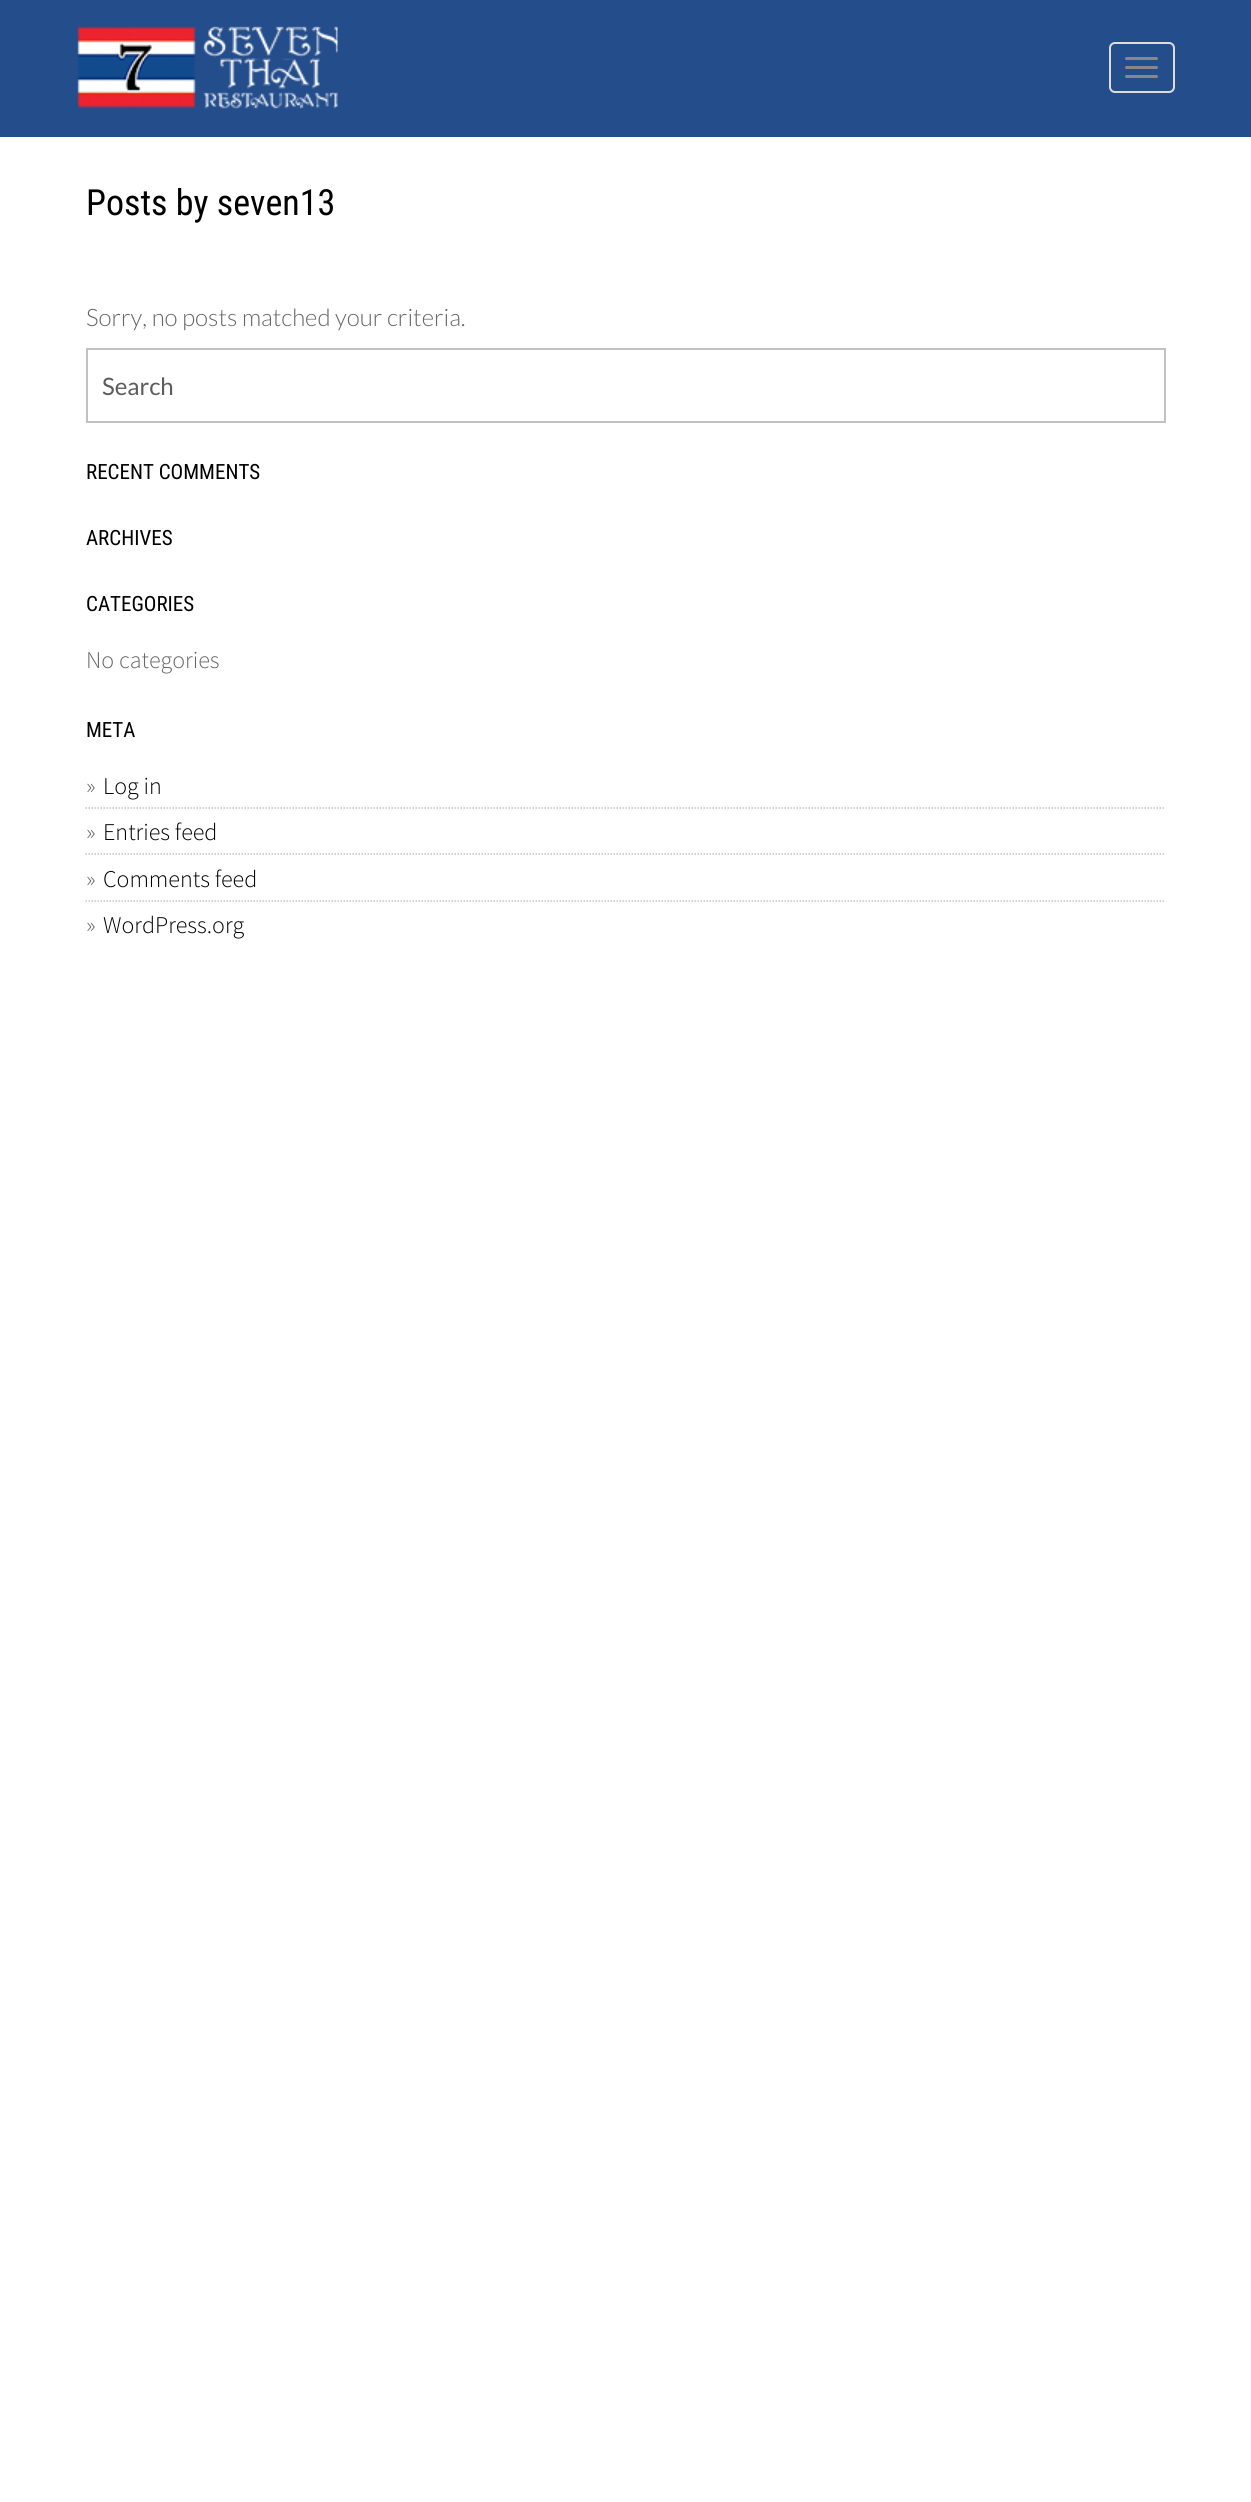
#include <cairo.h>
#include <math.h>
#include <stddef.h>

static cairo_t *c;
static void C(unsigned color){cairo_set_source_rgb(c, (color >> 16) / 255.0, (color >> 8 & 255) / 255.0, (color & 255) / 255.0);}
static void F(const char *family, double size, int italic, int bold){cairo_select_font_face(c, family, italic ? CAIRO_FONT_SLANT_ITALIC : CAIRO_FONT_SLANT_NORMAL,bold ? CAIRO_FONT_WEIGHT_BOLD : CAIRO_FONT_WEIGHT_NORMAL);cairo_set_font_size(c, size);}
static void T(double x, double y, const char *s){cairo_move_to(c, x, y);cairo_show_text(c, s);}
static void R(double x, double y, double w, double h){cairo_rectangle(c, x, y, w, h);cairo_fill(c);}
static void Q(double x, double y, double w, double h, double r){cairo_new_sub_path(c);cairo_arc(c, x + w - r, y + h - r, r, 0, M_PI / 2);cairo_arc(c, x + r, y + h - r, r, M_PI / 2, M_PI);cairo_arc(c, x + r, y + r, r, M_PI, 1.5 * M_PI);cairo_arc(c, x + w - r, y + r, r, 1.5 * M_PI, 2 * M_PI);cairo_close_path(c);}
static void I(const char *path, double x, double y, double w, double h){cairo_surface_t *image = cairo_image_surface_create_from_png(path);cairo_save(c);cairo_set_source_surface(c, image, x, y);cairo_rectangle(c, x, y, w, h);cairo_fill(c);cairo_restore(c);cairo_surface_destroy(image);}
int main(void) {
cairo_surface_t *surface = cairo_image_surface_create(CAIRO_FORMAT_RGB24, 1251, 2502);
c = cairo_create(surface);
cairo_font_options_t *options = cairo_font_options_create();
cairo_font_options_set_hint_metrics(options, CAIRO_HINT_METRICS_OFF);
cairo_font_options_set_hint_style(options, CAIRO_HINT_STYLE_NONE);
cairo_set_font_options(c, options);
cairo_set_miter_limit(c, 4);
C(0xffffff);
cairo_paint(c);
C(0x244d8b);
R(0,0,1251,137);
I("1.png",77,26,261,83);
Q(1110,43,64,49,5);
C(0xdddddd);
cairo_stroke(c);
C(0x888888);
Q(1125,57,33,3,1.5);
cairo_fill(c);
Q(1125,66,33,3,1.5);
cairo_fill(c);
Q(1125,75,33,3,1.5);
cairo_fill(c);
F("Roboto Condensed",36,0,0);
C(0x000000);
T(86,215,"Posts by seven13");
F("Lato Light",24,0,0);
C(0x666666);
T(86,326,"Sorry, no posts matched your criteria.");
cairo_rectangle(c,87,349,1078,73);
C(0xc1c1c1);
cairo_stroke(c);
F("Lato",24,0,0);
C(0x5c5c5c);
T(102,395,"Search");
F("Roboto Condensed",21,0,0);
C(0x000000);
T(86,479,"RECENT COMMENTS");
T(86,545,"ARCHIVES");
T(86,611,"CATEGORIES");
F("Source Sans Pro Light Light",24,0,0);
C(0x666666);
T(86,668,"No categories");
F("Roboto Condensed",21,0,0);
C(0x000000);
T(86,737,"META");
cairo_new_path(c);
cairo_move_to(c,85.5,808);
cairo_line_to(c,1165.5,808);
C(0xc2c2c2);
cairo_set_line_width(c,1.5);
cairo_set_dash(c,(double[]){1.5,1.5},2,0);
cairo_stroke(c);
F("Source Sans Pro Light Light",24,0,0);
C(0x666666);
T(86,794,"»");
C(0x000000);
T(103,794,"Log in");
cairo_new_path(c);
cairo_move_to(c,85.5,854);
cairo_line_to(c,1165.5,854);
C(0xc2c2c2);
cairo_stroke(c);
C(0x666666);
T(86,840,"»");
C(0x000000);
T(103,840,"Entries feed");
cairo_new_path(c);
cairo_move_to(c,85.5,901);
cairo_line_to(c,1165.5,901);
C(0xc2c2c2);
cairo_stroke(c);
C(0x666666);
T(86,887,"»");
C(0x000000);
T(103,887,"Comments feed");
C(0x666666);
T(86,933,"»");
C(0x000000);
T(103,933,"WordPress.org");
cairo_surface_write_to_png(surface, "o.png");
cairo_font_options_destroy(options);
cairo_destroy(c);
cairo_surface_destroy(surface);
return 0;
}
